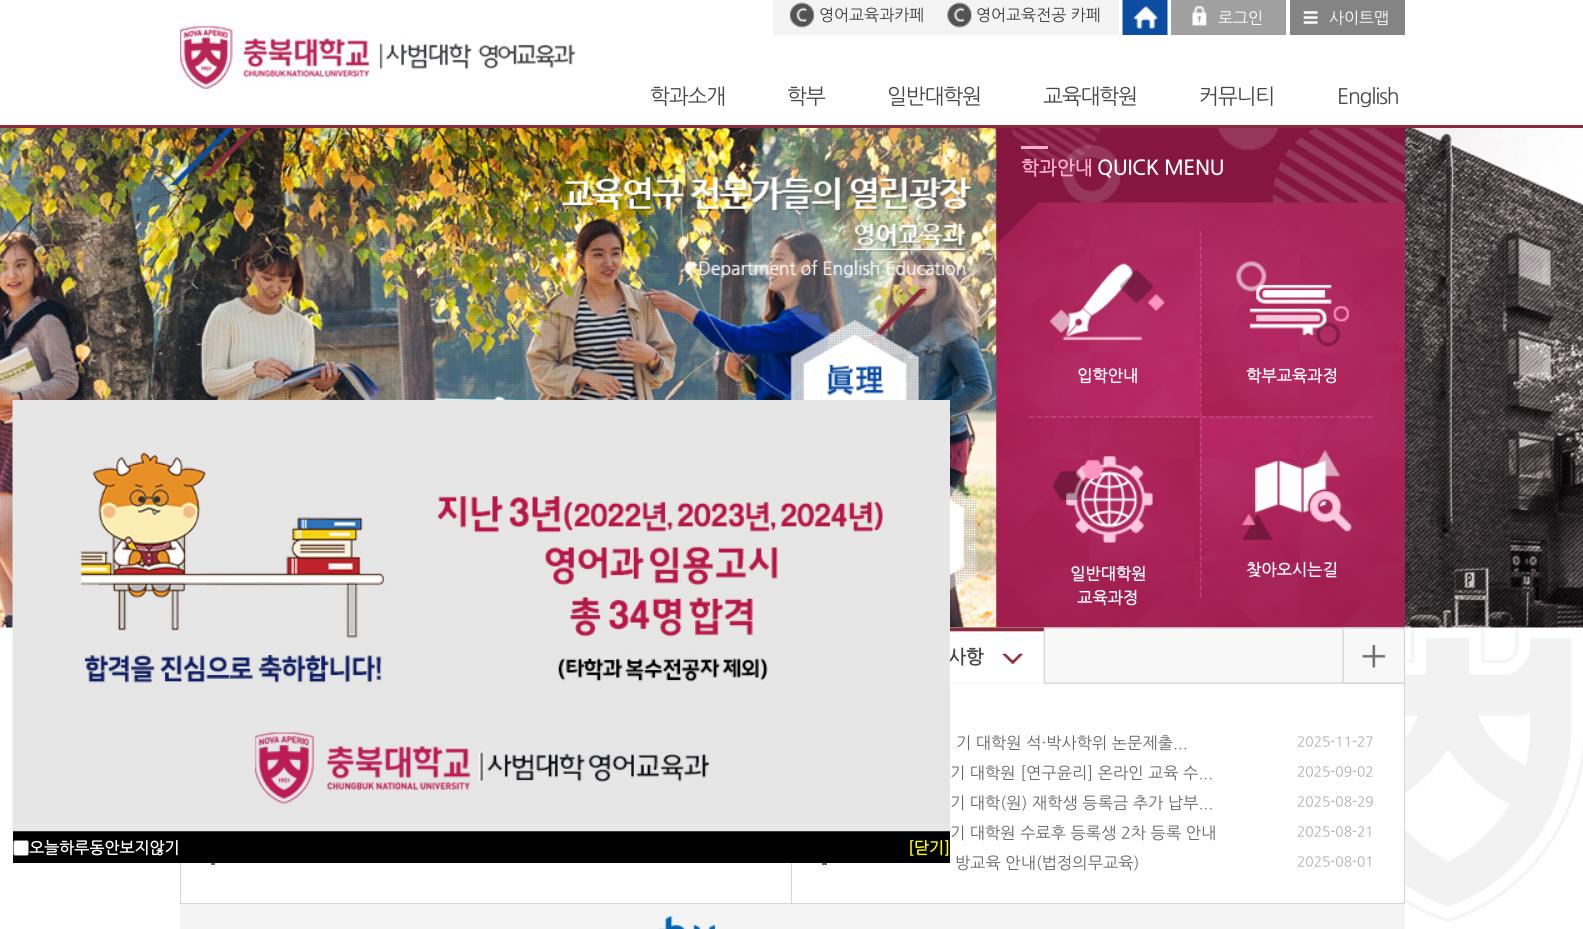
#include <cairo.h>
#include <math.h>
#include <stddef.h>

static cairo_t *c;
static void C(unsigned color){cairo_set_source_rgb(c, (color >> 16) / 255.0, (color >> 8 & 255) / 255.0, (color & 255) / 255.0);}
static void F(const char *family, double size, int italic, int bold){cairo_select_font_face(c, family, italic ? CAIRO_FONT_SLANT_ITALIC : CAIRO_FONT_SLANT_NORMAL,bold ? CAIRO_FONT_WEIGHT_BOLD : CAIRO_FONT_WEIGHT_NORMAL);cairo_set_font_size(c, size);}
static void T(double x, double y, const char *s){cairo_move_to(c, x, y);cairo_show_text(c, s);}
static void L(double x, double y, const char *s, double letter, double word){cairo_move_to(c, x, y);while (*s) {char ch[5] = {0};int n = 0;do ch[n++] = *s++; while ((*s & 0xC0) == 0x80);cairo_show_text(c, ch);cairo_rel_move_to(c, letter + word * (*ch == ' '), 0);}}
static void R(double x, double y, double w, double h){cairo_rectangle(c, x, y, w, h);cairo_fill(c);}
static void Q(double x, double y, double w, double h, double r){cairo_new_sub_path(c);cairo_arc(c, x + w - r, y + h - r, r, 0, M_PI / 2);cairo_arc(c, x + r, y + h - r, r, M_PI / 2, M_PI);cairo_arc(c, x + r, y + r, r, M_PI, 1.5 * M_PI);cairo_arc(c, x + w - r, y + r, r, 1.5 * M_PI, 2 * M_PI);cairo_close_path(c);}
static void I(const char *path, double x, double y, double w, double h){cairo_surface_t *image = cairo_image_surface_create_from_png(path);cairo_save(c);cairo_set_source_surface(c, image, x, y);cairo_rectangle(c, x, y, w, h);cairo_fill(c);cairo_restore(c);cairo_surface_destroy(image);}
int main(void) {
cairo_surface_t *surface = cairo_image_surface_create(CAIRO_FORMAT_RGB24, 1583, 929);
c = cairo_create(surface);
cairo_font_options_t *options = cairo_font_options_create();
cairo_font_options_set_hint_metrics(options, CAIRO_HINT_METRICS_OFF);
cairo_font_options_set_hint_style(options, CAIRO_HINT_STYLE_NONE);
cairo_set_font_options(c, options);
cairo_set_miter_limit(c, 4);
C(0xffffff);
cairo_paint(c);
C(0x000000);
R(13,831,937,32);
I("8.png",1310,627,273,295);
I("9.png",0,128,1583,500);
I("16.png",790,320,187,270);
I("11.png",996,128,409,500);
C(0xffffff);
R(1310,683,94,219);
I("17.png",950,627,455,57);
I("18.png",950,627,95,57);
F("NanumGothic",19,0,1);
C(0x464646);
T(948,663,"사항");
I("1.png",12,400,938,432);
C(0xffffff);
Q(13.5,840.5,15,15,2);
cairo_fill_preserve(c);
C(0x767676);
cairo_set_line_width(c,1);
cairo_stroke(c);
F("NanumGothic",16,0,1);
C(0xffffff);
T(29,853,"오늘하루동안보지않기");
C(0xffff00);
T(908,853,"[닫기]");
C(0x892b3c);
R(0,125,1583,3);
C(0xf4f4f4);
R(773,0,346,35);
I("2.png",790,2,24,26);
F("NanumGothic",16,0,0);
C(0x3c3c3c);
T(819,20,"영어교육과카페");
I("3.png",947,2,25,26);
T(976,20,"영어교육전공 카페");
I("4.png",1122,0,46,35);
C(0xa0a0a0);
R(1171,0,115,35);
I("5.png",1192,6,15,21);
C(0xffffff);
T(1218,23,"로그인");
C(0x848484);
R(1290,0,115,35);
I("6.png",1303,11,15,13);
C(0xffffff);
T(1329,23,"사이트맵");
I("7.png",180,26,396,63);
F("NanumGothic",21.25,0,0);
C(0x464646);
L(650,103,"학과소개",-1.25,0);
L(787,103,"학부",-1.25,0);
L(887,103,"일반대학원",-1.25,0);
L(1043,103,"교육대학원",-1.25,0);
L(1199,103,"커뮤니티",-1.25,0);
L(1337,103,"English",-1.25,0);
I("10.png",561,177,412,101);
F("NanumGothic",19,0,1);
C(0xffb1cf);
T(1021,174,"학과안내");
C(0xffaecd);
R(1021,146,27,3);
F("NanumGothic",20,0,1);
C(0xffffff);
T(1097,174,"QUICK MENU");
I("12.png",1049,263,116,78);
F("NanumGothic",16.25,0,1);
T(1077,381,"입학안내");
I("13.png",1236,261,113,86);
T(1246,381,"학부교육과정");
I("14.png",1052,456,101,87);
T(1070,579,"일반대학원");
T(1077,603,"교육과정");
I("15.png",1241,450,111,91);
T(1246,575,"찾아오시는길");
C(0xd4d4d4);
R(1404,628,1,275);
I("19.png",1342,627,62,57);
F("NanumGothic",16.25,0,0);
C(0x666666);
T(956,748,"기 대학원 석·박사학위 논문제출...");
F("NanumGothic",13.75,0,0);
C(0xa9a9a9);
T(1297,746,"2025-11-27");
F("NanumGothic",16.25,0,0);
C(0x666666);
T(950,778,"기 대학원 [연구윤리] 온라인 교육 수...");
F("NanumGothic",13.75,0,0);
C(0xa9a9a9);
T(1297,776,"2025-09-02");
F("NanumGothic",16.25,0,0);
C(0x666666);
T(950,808,"기 대학(원) 재학생 등록금 추가 납부...");
F("NanumGothic",13.75,0,0);
C(0xa9a9a9);
T(1297,806,"2025-08-29");
F("NanumGothic",16.25,0,0);
C(0x666666);
T(950,838,"기 대학원 수료후 등록생 2차 등록 안내");
F("NanumGothic",13.75,0,0);
C(0xa9a9a9);
T(1297,836,"2025-08-21");
C(0x6e6e6e);
R(822,863,5,2);
F("NanumGothic",16.25,0,0);
C(0x666666);
T(955,868,"방교육 안내(법정의무교육)");
F("NanumGothic",13.75,0,0);
C(0xa9a9a9);
T(1297,866,"2025-08-01");
C(0xd4d4d4);
R(791,863,1,40);
R(180,863,1,40);
C(0x6e6e6e);
R(211,863,4,2);
C(0xf4f4f4);
R(180,904,1225,25);
C(0xd4d4d4);
R(180,903,1225,1);
I("20.png",658,916,57,13);
cairo_surface_write_to_png(surface, "o.png");
cairo_font_options_destroy(options);
cairo_destroy(c);
cairo_surface_destroy(surface);
return 0;
}
